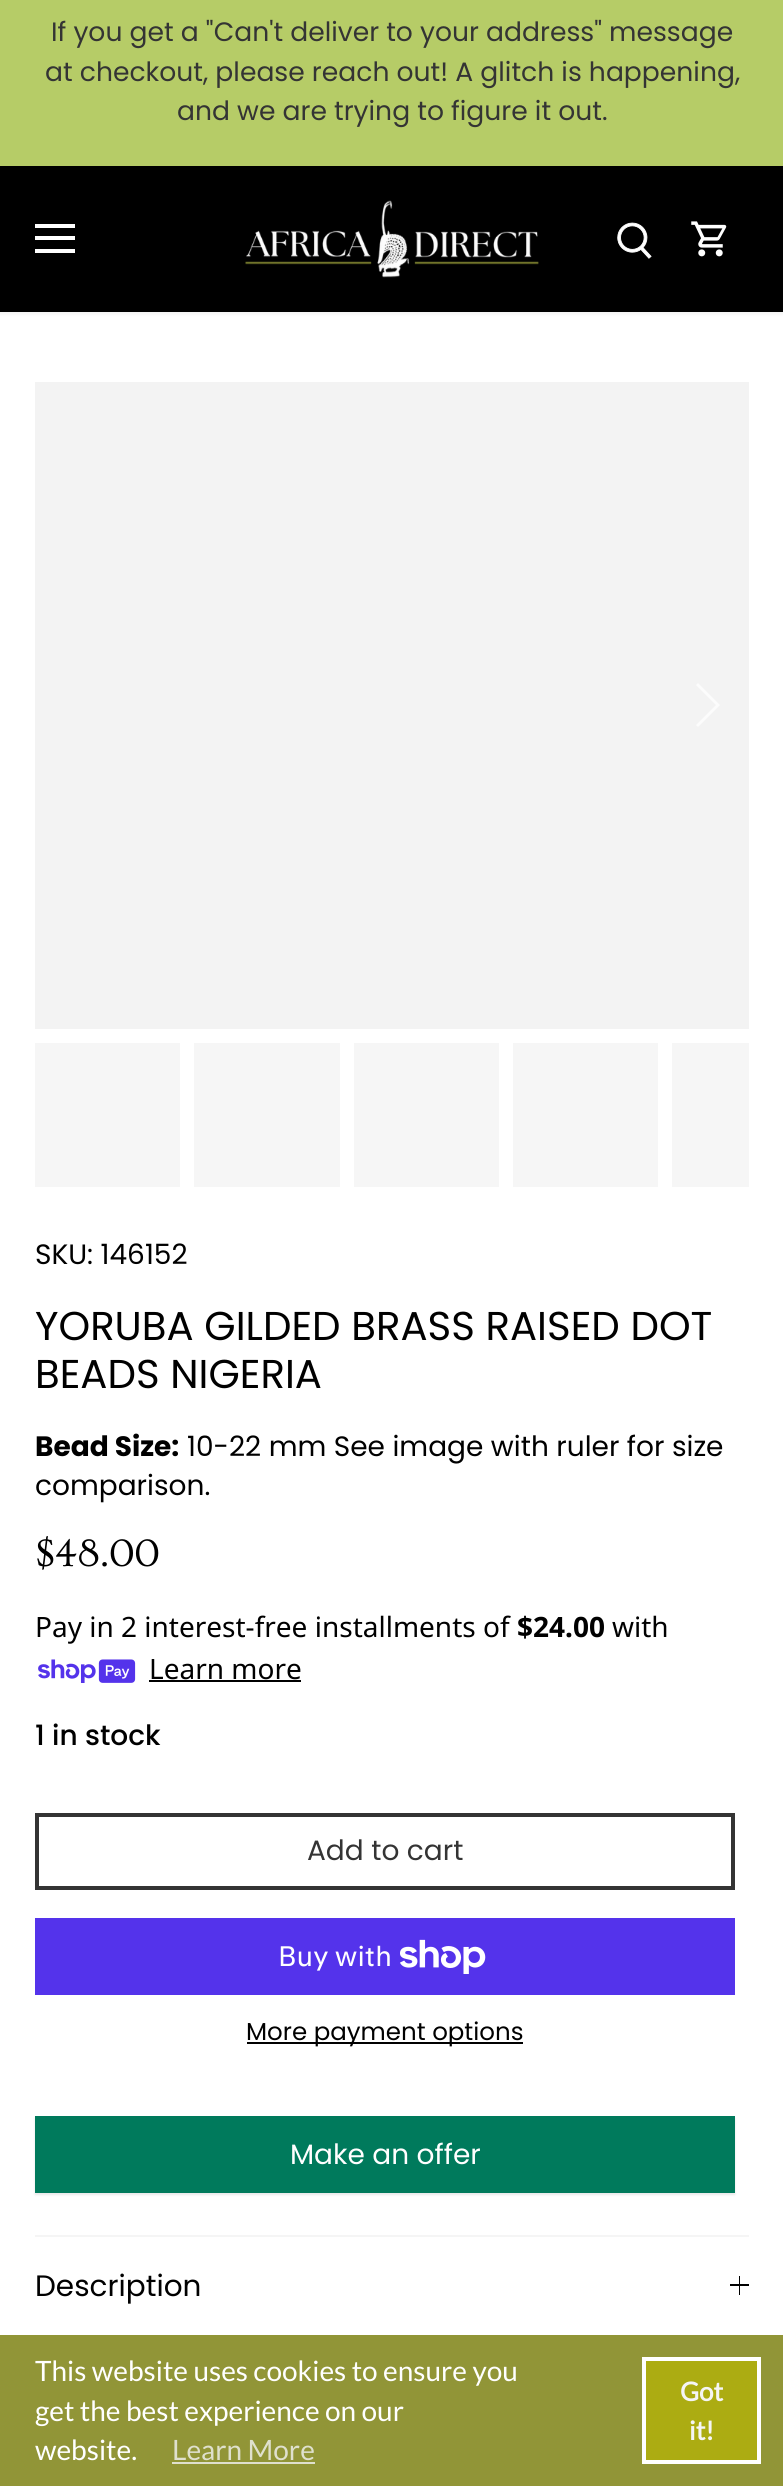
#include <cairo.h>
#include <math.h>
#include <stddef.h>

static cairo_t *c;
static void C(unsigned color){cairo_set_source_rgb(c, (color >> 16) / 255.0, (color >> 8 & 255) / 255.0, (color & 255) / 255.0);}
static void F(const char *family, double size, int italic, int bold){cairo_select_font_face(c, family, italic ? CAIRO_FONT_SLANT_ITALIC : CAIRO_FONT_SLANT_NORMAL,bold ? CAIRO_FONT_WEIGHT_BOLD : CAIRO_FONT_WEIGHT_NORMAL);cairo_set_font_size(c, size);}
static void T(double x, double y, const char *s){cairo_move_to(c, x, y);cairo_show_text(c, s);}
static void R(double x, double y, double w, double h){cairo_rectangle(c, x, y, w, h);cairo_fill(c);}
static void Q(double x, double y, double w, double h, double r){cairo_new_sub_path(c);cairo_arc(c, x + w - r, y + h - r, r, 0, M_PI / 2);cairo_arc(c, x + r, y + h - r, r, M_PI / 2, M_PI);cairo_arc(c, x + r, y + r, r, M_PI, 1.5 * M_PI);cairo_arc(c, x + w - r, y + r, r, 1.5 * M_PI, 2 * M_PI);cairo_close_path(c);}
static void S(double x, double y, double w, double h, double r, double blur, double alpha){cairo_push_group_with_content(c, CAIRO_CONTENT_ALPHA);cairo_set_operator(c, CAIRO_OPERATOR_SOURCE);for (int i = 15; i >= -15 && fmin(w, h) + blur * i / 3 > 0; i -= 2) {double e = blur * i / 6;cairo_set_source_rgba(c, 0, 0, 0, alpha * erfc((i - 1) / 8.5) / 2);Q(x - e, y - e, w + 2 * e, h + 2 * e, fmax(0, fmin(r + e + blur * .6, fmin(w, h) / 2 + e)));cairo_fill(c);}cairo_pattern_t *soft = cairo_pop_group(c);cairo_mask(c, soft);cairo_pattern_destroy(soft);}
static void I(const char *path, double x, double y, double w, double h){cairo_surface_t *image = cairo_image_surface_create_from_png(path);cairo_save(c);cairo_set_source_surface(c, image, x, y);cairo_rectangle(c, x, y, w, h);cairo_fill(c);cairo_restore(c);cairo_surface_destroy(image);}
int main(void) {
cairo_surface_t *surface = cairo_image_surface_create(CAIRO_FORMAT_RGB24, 783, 2486);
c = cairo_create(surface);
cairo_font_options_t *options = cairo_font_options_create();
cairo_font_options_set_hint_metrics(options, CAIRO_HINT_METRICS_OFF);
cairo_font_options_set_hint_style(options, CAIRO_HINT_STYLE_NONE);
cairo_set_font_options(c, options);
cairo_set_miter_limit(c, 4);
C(0xffffff);
cairo_paint(c);
C(0x000000);
S(-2,165,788,148,0,2.5,.08);
C(0xb6cc67);
R(0,0,783,166);
F("Poppins",26.6,0,0);
C(0x343434);
T(51,41,"If you get a \"Can't deliver to your address\" message");
T(45,81,"at checkout, please reach out! A glitch is happening,");
T(177,120,"and we are trying to figure it out.");
C(0x000000);
R(0,166,783,146);
C(0xffffff);
R(35,224,40,4);
R(35,236,40,4);
R(35,249,40,4);
I("1.png",245,200,294,78);
I("2.png",617,222,35,37);
I("3.png",691,221,36,36);
C(0xf3f3f3);
R(35,382,714,647);
C(0xfcfcfc);
cairo_new_path(c);
cairo_move_to(c,698,683);
cairo_line_to(c,696,685);
cairo_line_to(c,716,705);
cairo_line_to(c,696,725);
cairo_line_to(c,698,727);
cairo_line_to(c,720,705);
cairo_close_path(c);
cairo_fill(c);
C(0xf6f6f6);
R(35,1043,145,144);
R(194,1043,146,144);
R(354,1043,145,144);
R(513,1043,145,144);
R(672,1043,77,144);
F("Poppins",28,0,0);
C(0x000000);
T(35,1264,"SKU: 146152");
F("Poppins",40.25,0,0);
T(35,1340,"YORUBA GILDED BRASS RAISED DOT");
T(35,1388,"BEADS NIGERIA");
F("Poppins",28,0,1);
T(35,1456,"Bead Size:");
F("Poppins",28,0,0);
T(187,1456,"10-22 mm See image with ruler for size");
T(35,1495,"comparison.");
F("Ovo",40.25,0,0);
T(35,1566,"$48.00");
F("Noto Sans",28,0,0);
T(35,1637,"Pay in 2 interest-free installments of");
F("Noto Sans",28,0,1);
T(517,1637,"$24.00");
F("Noto Sans",28,0,0);
T(612,1637,"with");
I("4.png",38,1659,98,24);
T(149,1679,"Learn more");
R(149,1680,152,2);
F("Poppins Medium",28,0,0);
T(35,1745,"1 in stock");
cairo_rectangle(c,37,1815,696,73);
C(0x343434);
cairo_set_line_width(c,4);
cairo_stroke(c);
F("Poppins",28,0,0);
T(307,1860,"Add to cart");
C(0x5433eb);
R(35,1918,700,77);
F("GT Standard",28,0,0);
C(0xffffff);
T(278,1966,"Buy with");
I("5.png",400,1939,86,35);
C(0x000000);
R(247,2042,276,2);
F("Poppins",24.5,0,0);
T(246,2040,"More payment options");
C(0x1f2124);
S(35,2118,700,77,0,1,.1);
C(0x007a5c);
R(35,2116,700,77);
F("Poppins",28,0,0);
C(0xffffff);
T(290,2164,"Make an offer");
C(0xf5f5f5);
R(35,2235,714,2);
F("Poppins",29.5,0,0);
C(0x000000);
T(35,2296,"Description");
R(739,2276,1,19);
R(730,2284,19,2);
C(0x919537);
R(0,2335,783,151);
F("Lato",28,0,0);
C(0xffffff);
T(35,2381,"This website uses cookies to ensure you");
T(35,2421,"get the best experience on our");
T(35,2460,"website.");
C(0xdfe0cd);
T(172,2460,"Learn More");
R(172,2462,143,2);
C(0xacac12);
cairo_rectangle(c,644,2359,115,103);
cairo_fill_preserve(c);
C(0xffffff);
cairo_stroke(c);
F("Lato",26,0,1);
C(0xf5f5f5);
T(680,2401,"Got");
T(689,2440,"it!");
cairo_surface_write_to_png(surface, "o.png");
cairo_font_options_destroy(options);
cairo_destroy(c);
cairo_surface_destroy(surface);
return 0;
}
